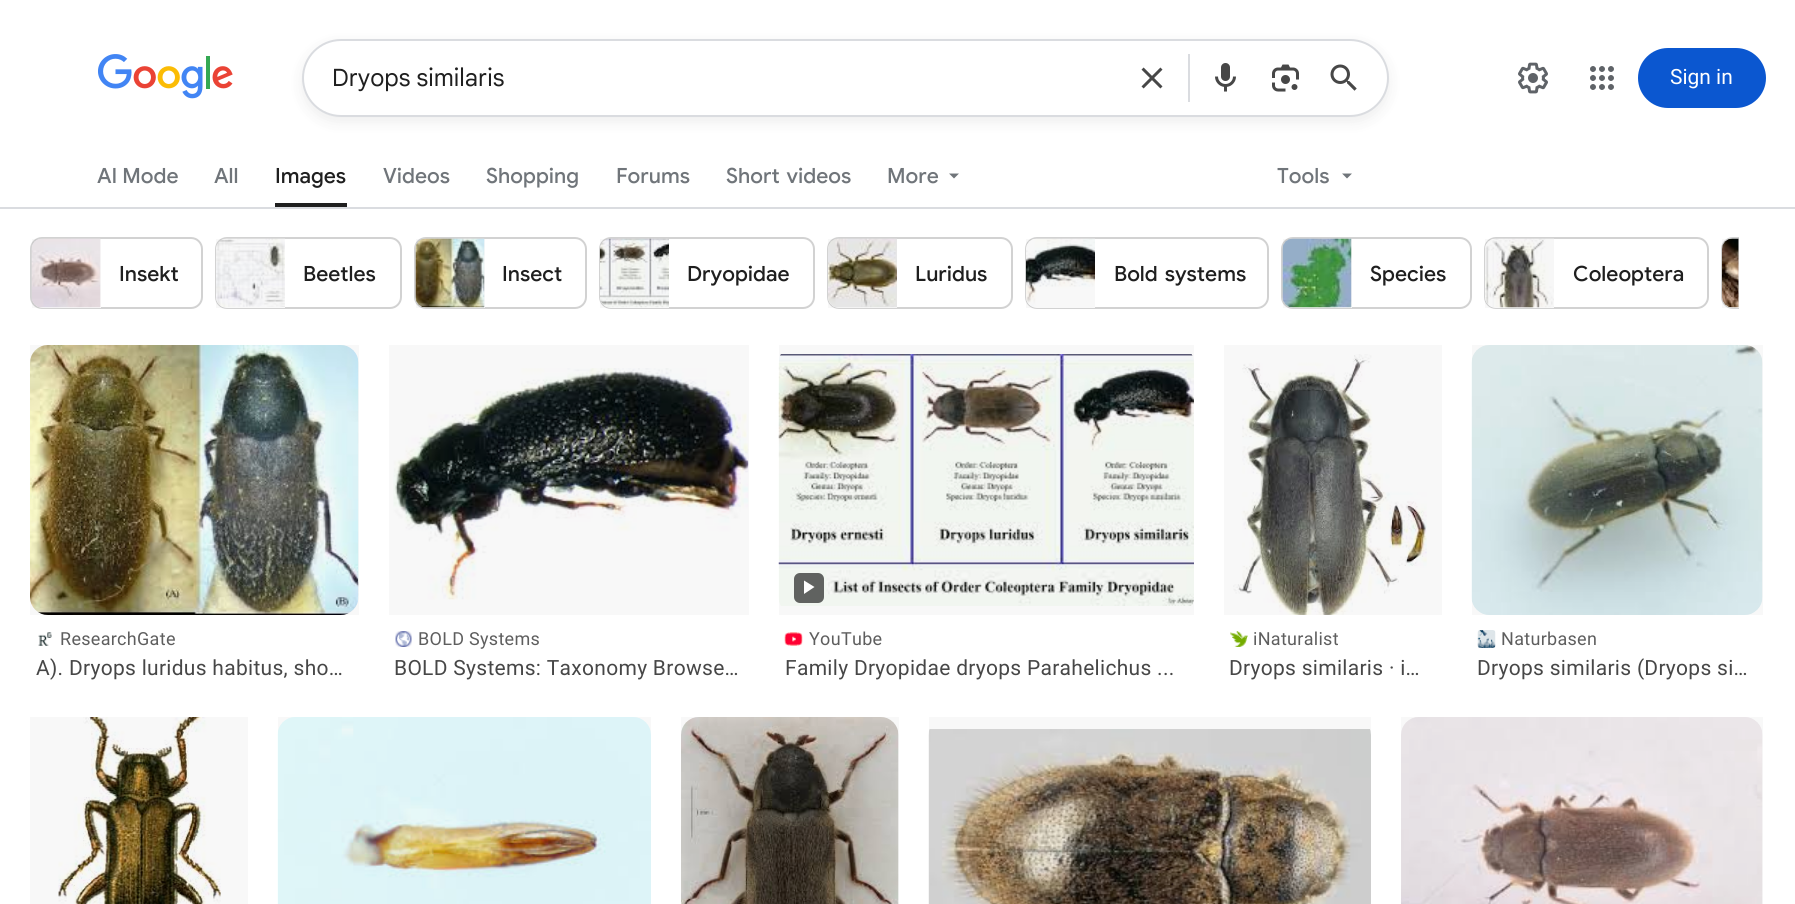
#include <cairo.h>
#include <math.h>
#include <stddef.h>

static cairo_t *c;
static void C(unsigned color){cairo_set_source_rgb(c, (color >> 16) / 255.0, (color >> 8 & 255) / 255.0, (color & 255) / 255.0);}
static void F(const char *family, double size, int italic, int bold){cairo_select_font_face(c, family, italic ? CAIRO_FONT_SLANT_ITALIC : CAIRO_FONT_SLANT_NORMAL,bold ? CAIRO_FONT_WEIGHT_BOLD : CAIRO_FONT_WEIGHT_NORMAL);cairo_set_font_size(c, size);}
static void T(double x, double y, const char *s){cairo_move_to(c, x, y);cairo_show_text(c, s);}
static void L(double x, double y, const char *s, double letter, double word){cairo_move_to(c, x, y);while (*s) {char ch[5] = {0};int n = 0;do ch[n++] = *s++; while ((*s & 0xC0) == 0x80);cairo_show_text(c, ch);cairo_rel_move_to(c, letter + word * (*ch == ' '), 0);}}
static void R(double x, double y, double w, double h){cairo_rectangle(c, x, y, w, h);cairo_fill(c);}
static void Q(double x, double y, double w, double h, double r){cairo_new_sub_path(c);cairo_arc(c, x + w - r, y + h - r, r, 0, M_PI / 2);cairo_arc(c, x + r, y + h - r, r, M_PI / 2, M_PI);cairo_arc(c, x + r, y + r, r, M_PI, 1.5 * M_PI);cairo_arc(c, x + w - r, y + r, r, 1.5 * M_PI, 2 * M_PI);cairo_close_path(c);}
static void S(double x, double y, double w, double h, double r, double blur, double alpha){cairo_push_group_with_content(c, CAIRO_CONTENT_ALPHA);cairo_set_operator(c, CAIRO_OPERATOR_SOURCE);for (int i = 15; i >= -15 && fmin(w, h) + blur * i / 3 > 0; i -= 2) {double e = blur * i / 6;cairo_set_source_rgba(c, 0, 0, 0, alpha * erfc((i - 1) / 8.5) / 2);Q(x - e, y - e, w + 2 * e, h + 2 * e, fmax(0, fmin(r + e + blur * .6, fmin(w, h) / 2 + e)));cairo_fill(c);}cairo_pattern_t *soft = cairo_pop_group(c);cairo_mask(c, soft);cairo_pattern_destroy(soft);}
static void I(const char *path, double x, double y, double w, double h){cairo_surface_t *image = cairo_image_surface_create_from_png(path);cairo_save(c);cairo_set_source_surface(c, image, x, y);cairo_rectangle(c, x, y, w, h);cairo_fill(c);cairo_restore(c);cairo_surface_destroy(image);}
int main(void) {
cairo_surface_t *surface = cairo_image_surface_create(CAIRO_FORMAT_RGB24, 1795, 904);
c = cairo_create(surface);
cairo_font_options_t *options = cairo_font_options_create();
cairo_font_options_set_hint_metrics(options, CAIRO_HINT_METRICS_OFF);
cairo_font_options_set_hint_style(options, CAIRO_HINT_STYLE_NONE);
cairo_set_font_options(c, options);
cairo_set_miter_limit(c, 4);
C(0xffffff);
cairo_paint(c);
I("1.png",98,54,135,45);
C(0x1f1f1f);
S(302,44,1087,78,39,7.5,.08);
C(0xffffff);
Q(303,40,1085,76,38);
cairo_fill_preserve(c);
C(0xdadce0);
cairo_stroke(c);
F("Google Sans",24,0,0);
C(0x1f1f1f);
T(332,86,"Dryops similaris");
I("2.png",1141,67,22,22);
C(0xdadce0);
R(1188,54,2,48);
I("3.png",1215,63,21,29);
I("4.png",1272,64,27,28);
I("5.png",1330,64,27,27);
I("6.png",1518,62,30,32);
I("7.png",1590,66,24,24);
C(0x0b57d0);
Q(1638,48,128,60,30);
cairo_fill(c);
F("Roboto",21,0,0);
C(0xffffff);
T(1670,84,"Sign in");
F("Google Sans Medium",21,0,0);
C(0x70757a);
T(97,183,"AI Mode");
T(214,183,"All");
C(0x1f1f1f);
R(275,203,72,4);
T(275,183,"Images");
C(0x70757a);
T(383,183,"Videos");
T(486,183,"Shopping");
T(616,183,"Forums");
L(726,183,"Short videos",0,2);
T(887,183,"More");
cairo_new_path(c);
cairo_move_to(c,949,173.5);
cairo_line_to(c,954,178.5);
cairo_line_to(c,959,173.5);
cairo_close_path(c);
cairo_fill(c);
T(1277,183,"Tools");
cairo_new_path(c);
cairo_move_to(c,1342,173.5);
cairo_line_to(c,1347,178.5);
cairo_line_to(c,1352,173.5);
cairo_close_path(c);
cairo_fill(c);
C(0xdadce0);
R(0,207,1795,2);
Q(31,238,171,70,11);
C(0xd2d2d2);
cairo_stroke(c);
C(0xffffff);
cairo_new_path(c);
cairo_move_to(c,43,239);
cairo_line_to(c,101,239);
cairo_line_to(c,101,308);
cairo_line_to(c,43,308);
cairo_curve_to(c,37,308,32,303,32,297);
cairo_line_to(c,32,250);
cairo_curve_to(c,32,244,37,239,43,239);
cairo_close_path(c);
cairo_fill(c);
I("8.png",31,238,70,70);
cairo_set_source_rgba(c,0,0,0,0.03);
R(32,239,69,69);
C(0x1f1f1f);
T(119,281,"Insekt");
Q(216,238,185,70,11);
C(0xd2d2d2);
cairo_stroke(c);
C(0xffffff);
cairo_new_path(c);
cairo_move_to(c,227,239);
cairo_line_to(c,285,239);
cairo_line_to(c,285,308);
cairo_line_to(c,227,308);
cairo_curve_to(c,221,308,216,303,216,297);
cairo_line_to(c,216,250);
cairo_curve_to(c,216,244,221,239,227,239);
cairo_close_path(c);
cairo_fill(c);
I("9.png",216,238,69,69);
cairo_set_source_rgba(c,0,0,0,0.03);
R(216,239,69,69);
C(0x1f1f1f);
T(303,281,"Beetles");
Q(415,238,171,70,11);
C(0xd2d2d2);
cairo_stroke(c);
C(0xffffff);
cairo_new_path(c);
cairo_move_to(c,427,239);
cairo_line_to(c,485,239);
cairo_line_to(c,485,308);
cairo_line_to(c,427,308);
cairo_curve_to(c,421,308,416,303,416,297);
cairo_line_to(c,416,250);
cairo_curve_to(c,416,244,421,239,427,239);
cairo_close_path(c);
cairo_fill(c);
I("10.png",415,238,70,70);
cairo_set_source_rgba(c,0,0,0,0.03);
R(416,239,69,69);
C(0x1f1f1f);
T(502,281,"Insect");
Q(600,238,214,70,11);
C(0xd2d2d2);
cairo_stroke(c);
C(0xffffff);
cairo_new_path(c);
cairo_move_to(c,611,239);
cairo_line_to(c,669,239);
cairo_line_to(c,669,308);
cairo_line_to(c,611,308);
cairo_curve_to(c,605,308,600,303,600,297);
cairo_line_to(c,600,250);
cairo_curve_to(c,600,244,605,239,611,239);
cairo_close_path(c);
cairo_fill(c);
I("11.png",600,238,69,70);
cairo_set_source_rgba(c,0,0,0,0.03);
R(600,239,69,69);
C(0x1f1f1f);
T(687,281,"Dryopidae");
Q(828,238,184,70,11);
C(0xd2d2d2);
cairo_stroke(c);
C(0xffffff);
cairo_new_path(c);
cairo_move_to(c,839,239);
cairo_line_to(c,897,239);
cairo_line_to(c,897,308);
cairo_line_to(c,839,308);
cairo_curve_to(c,833,308,828,303,828,297);
cairo_line_to(c,828,250);
cairo_curve_to(c,828,244,833,239,839,239);
cairo_close_path(c);
cairo_fill(c);
I("12.png",828,238,69,70);
cairo_set_source_rgba(c,0,0,0,0.03);
R(828,239,69,69);
C(0x1f1f1f);
T(915,281,"Luridus");
Q(1026,238,242,70,11);
C(0xd2d2d2);
cairo_stroke(c);
C(0xffffff);
cairo_new_path(c);
cairo_move_to(c,1037,239);
cairo_line_to(c,1095,239);
cairo_line_to(c,1095,308);
cairo_line_to(c,1037,308);
cairo_curve_to(c,1031,308,1026,303,1026,297);
cairo_line_to(c,1026,250);
cairo_curve_to(c,1026,244,1031,239,1037,239);
cairo_close_path(c);
cairo_fill(c);
I("13.png",1026,238,69,68);
cairo_set_source_rgba(c,0,0,0,0.03);
R(1026,239,69,69);
C(0x1f1f1f);
L(1114,281,"Bold systems",0,2);
Q(1282,238,189,70,11);
C(0xd2d2d2);
cairo_stroke(c);
C(0xffffff);
cairo_new_path(c);
cairo_move_to(c,1294,239);
cairo_line_to(c,1352,239);
cairo_line_to(c,1352,308);
cairo_line_to(c,1294,308);
cairo_curve_to(c,1288,308,1283,303,1283,297);
cairo_line_to(c,1283,250);
cairo_curve_to(c,1283,244,1288,239,1294,239);
cairo_close_path(c);
cairo_fill(c);
I("14.png",1282,238,70,70);
cairo_set_source_rgba(c,0,0,0,0.03);
R(1283,239,69,69);
C(0x1f1f1f);
T(1370,281,"Species");
Q(1485,238,223,70,11);
C(0xd2d2d2);
cairo_stroke(c);
C(0xffffff);
cairo_new_path(c);
cairo_move_to(c,1496,239);
cairo_line_to(c,1554,239);
cairo_line_to(c,1554,308);
cairo_line_to(c,1496,308);
cairo_curve_to(c,1490,308,1485,303,1485,297);
cairo_line_to(c,1485,250);
cairo_curve_to(c,1485,244,1490,239,1496,239);
cairo_close_path(c);
cairo_fill(c);
I("15.png",1485,238,69,70);
cairo_set_source_rgba(c,0,0,0,0.03);
R(1485,239,69,69);
C(0x1f1f1f);
T(1573,281,"Coleoptera");
cairo_save(c);
cairo_rectangle(c,30,237,1709,75);
cairo_clip(c);
Q(1722,238,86,70,11);
C(0xd2d2d2);
cairo_stroke(c);
cairo_restore(c);
C(0xffffff);
cairo_new_path(c);
cairo_move_to(c,1733,239);
cairo_line_to(c,1739,239);
cairo_line_to(c,1739,308);
cairo_line_to(c,1733,308);
cairo_curve_to(c,1727,308,1722,303,1722,297);
cairo_line_to(c,1722,250);
cairo_curve_to(c,1722,244,1727,239,1733,239);
cairo_close_path(c);
cairo_fill(c);
I("16.png",1722,238,17,70);
cairo_set_source_rgba(c,0,0,0,0.03);
R(1722,239,17,69);
I("17.png",30,345,329,270);
R(30,345,329,270);
I("18.png",38,632,14,14);
F("Roboto",18,0,0);
C(0x5e5e5e);
L(60,645,"ResearchGate",.3,0);
F("Roboto",21,0,0);
C(0x474747);
L(36,675,"A). Dryops luridus habitus, sho…",.3,0);
I("19.png",393,368,356,232);
cairo_set_source_rgba(c,0,0,0,0.03);
R(389,345,360,270);
I("20.png",395,631,17,16);
F("Roboto",18,0,0);
C(0x5e5e5e);
L(418,645,"BOLD Systems",.3,0);
F("Roboto",21,0,0);
C(0x474747);
L(394,675,"BOLD Systems: Taxonomy Browse…",.3,0);
I("21.png",778,354,416,252);
cairo_set_source_rgba(c,0,0,0,0.03);
R(779,345,415,270);
C(0x606260);
Q(794,573,30,30,6);
cairo_fill(c);
C(0xffffff);
cairo_new_path(c);
cairo_move_to(c,804,580.5);
cairo_line_to(c,804,594);
cairo_line_to(c,814.5,587);
cairo_close_path(c);
cairo_fill(c);
I("22.png",784,632,19,14);
F("Roboto",18,0,0);
C(0x5e5e5e);
L(809,645,"YouTube",.3,0);
F("Roboto",21,0,0);
C(0x474747);
L(785,675,"Family Dryopidae dryops Parahelichus ...",.3,0);
I("23.png",1233,354,194,261);
cairo_set_source_rgba(c,0,0,0,0.03);
R(1224,345,218,270);
I("24.png",1230,631,18,16);
F("Roboto",18,0,0);
C(0x5e5e5e);
L(1253,645,"iNaturalist",.3,0);
F("Roboto",21,0,0);
C(0x474747);
L(1229,675,"Dryops similaris · i…",.3,0);
I("25.png",1471,345,292,270);
cairo_set_source_rgba(c,0,0,0,0.03);
R(1472,345,291,270);
I("26.png",1477,630,19,18);
F("Roboto",18,0,0);
C(0x5e5e5e);
L(1501,645,"Naturbasen",.3,0);
F("Roboto",21,0,0);
C(0x474747);
L(1477,675,"Dryops similaris (Dryops si…",.3,0);
I("27.png",58,717,163,187);
cairo_set_source_rgba(c,0,0,0,0.03);
R(30,717,218,187);
I("28.png",277,717,374,187);
R(278,717,373,187);
I("29.png",681,717,218,187);
R(681,717,218,187);
I("30.png",928,729,443,175);
R(929,717,442,187);
I("31.png",1401,717,362,187);
R(1401,717,362,187);
cairo_surface_write_to_png(surface, "o.png");
cairo_font_options_destroy(options);
cairo_destroy(c);
cairo_surface_destroy(surface);
return 0;
}
